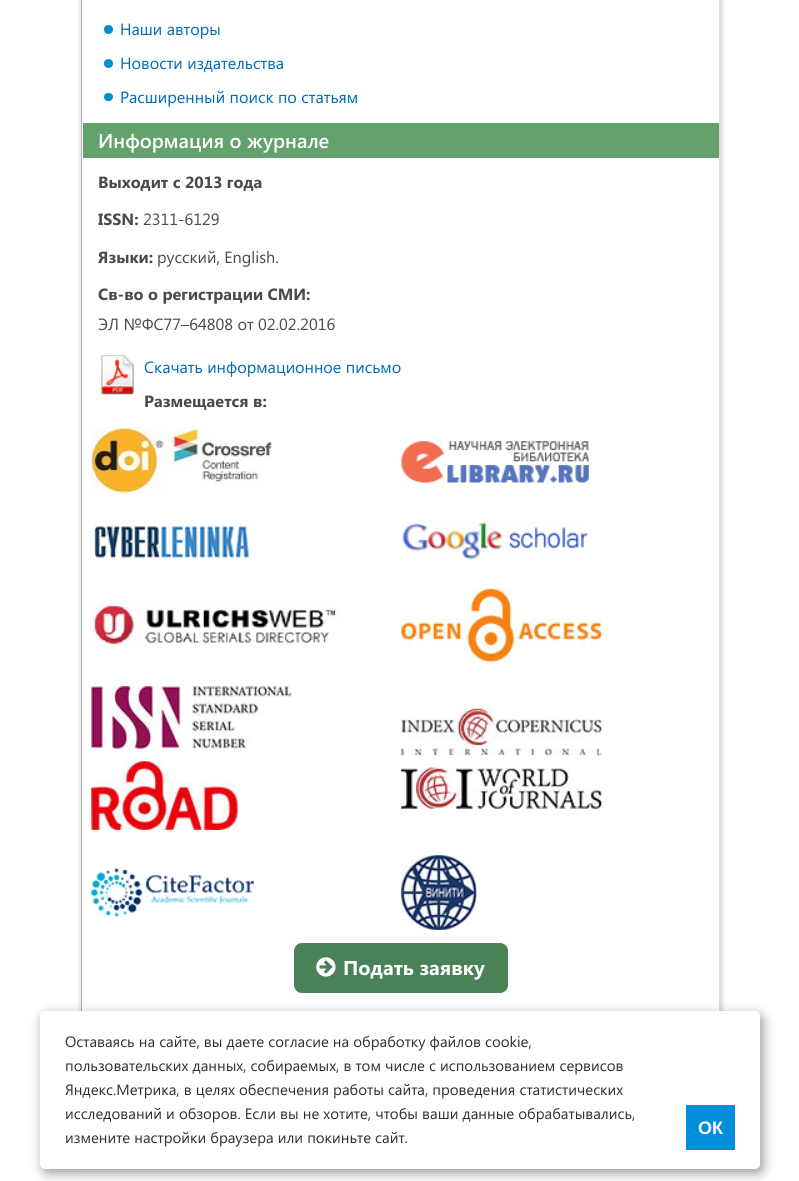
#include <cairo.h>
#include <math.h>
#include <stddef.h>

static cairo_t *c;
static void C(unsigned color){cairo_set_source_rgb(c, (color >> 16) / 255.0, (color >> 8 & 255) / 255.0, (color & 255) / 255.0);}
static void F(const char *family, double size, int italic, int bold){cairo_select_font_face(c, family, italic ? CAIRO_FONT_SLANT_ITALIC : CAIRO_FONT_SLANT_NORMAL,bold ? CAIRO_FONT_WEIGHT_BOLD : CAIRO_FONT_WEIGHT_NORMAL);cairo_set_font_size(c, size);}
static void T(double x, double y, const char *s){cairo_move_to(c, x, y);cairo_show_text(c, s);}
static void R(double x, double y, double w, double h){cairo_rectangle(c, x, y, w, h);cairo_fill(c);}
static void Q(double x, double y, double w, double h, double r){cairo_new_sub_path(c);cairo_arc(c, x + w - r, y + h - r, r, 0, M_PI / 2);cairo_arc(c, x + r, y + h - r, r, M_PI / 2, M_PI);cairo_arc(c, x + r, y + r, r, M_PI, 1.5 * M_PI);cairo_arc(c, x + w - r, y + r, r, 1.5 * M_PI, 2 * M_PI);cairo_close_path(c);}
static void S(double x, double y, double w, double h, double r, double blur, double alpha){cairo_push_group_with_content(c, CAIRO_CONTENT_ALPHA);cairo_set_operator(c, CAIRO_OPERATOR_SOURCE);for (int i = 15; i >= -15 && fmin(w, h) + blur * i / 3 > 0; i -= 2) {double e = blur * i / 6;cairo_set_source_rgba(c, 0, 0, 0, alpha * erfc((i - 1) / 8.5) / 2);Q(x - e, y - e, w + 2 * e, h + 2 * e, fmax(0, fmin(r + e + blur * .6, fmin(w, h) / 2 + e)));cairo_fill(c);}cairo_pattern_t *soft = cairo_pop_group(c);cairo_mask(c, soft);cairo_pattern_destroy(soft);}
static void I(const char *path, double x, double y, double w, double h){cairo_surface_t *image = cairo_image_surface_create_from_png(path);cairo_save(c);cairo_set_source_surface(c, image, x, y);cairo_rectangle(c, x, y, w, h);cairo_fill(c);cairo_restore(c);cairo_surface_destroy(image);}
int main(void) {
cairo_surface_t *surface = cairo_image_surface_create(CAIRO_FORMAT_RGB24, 799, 1181);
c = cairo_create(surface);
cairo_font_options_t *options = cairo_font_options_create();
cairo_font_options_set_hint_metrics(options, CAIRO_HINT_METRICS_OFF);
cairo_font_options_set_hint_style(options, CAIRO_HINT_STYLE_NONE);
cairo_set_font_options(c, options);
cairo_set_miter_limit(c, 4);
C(0xffffff);
cairo_paint(c);
cairo_save(c);
cairo_set_fill_rule(c,CAIRO_FILL_RULE_EVEN_ODD);
cairo_new_path(c);
cairo_move_to(c,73,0);
cairo_line_to(c,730,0);
cairo_line_to(c,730,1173);
cairo_line_to(c,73,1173);
cairo_close_path(c);
cairo_move_to(c,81,-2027);
cairo_line_to(c,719,-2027);
cairo_line_to(c,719,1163);
cairo_line_to(c,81,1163);
cairo_close_path(c);
cairo_clip(c);
C(0x000000);
S(80,-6,643,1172,0,2,.15);
cairo_restore(c);
C(0xb5b5b5);
R(81,0,1,1011);
C(0x008dd2);
cairo_arc(c,108.5,29.5,4.5,0,2 * M_PI);
cairo_fill(c);
F("Segoe UI",16.25,0,0);
C(0x006bb8);
T(120,35,"Наши авторы");
C(0x008dd2);
cairo_new_path(c);
cairo_arc(c,108.5,63.5,4.5,0,2 * M_PI);
cairo_fill(c);
C(0x006bb8);
T(120,69,"Новости издательства");
C(0x008dd2);
Q(104,93,9,8,4);
cairo_fill(c);
C(0x006bb8);
T(120,103,"Расширенный поиск по статьям");
C(0x63a16d);
R(83,123,636,35);
F("Segoe UI SemiBold",20,0,0);
C(0xffffff);
T(98,148,"Информация о журнале");
F("Segoe UI",16.25,0,1);
C(0x4a4a4a);
T(98,188,"Выходит с 2013 года");
T(98,225,"ISSN:");
F("Segoe UI",16.25,0,0);
T(143,225,"2311-6129");
F("Segoe UI",16.25,0,1);
T(98,263,"Языки:");
F("Segoe UI",16.25,0,0);
T(157,263,"русский, English.");
F("Segoe UI",16.25,0,1);
T(98,300,"Св-во о регистрации СМИ:");
F("Segoe UI",16.25,0,0);
T(98,330,"ЭЛ №ФС77–64808 от 02.02.2016");
I("1.png",101,355,33,40);
C(0x006bb8);
T(144,373,"Скачать информационное письмо");
F("Segoe UI",16.25,0,1);
C(0x4a4a4a);
T(144,407,"Размещается в:");
I("2.png",91,427,181,69);
I("3.png",401,441,188,42);
I("4.png",94,526,155,32);
I("5.png",401,522,187,39);
I("6.png",91,602,249,47);
I("7.png",401,588,201,74);
I("8.png",91,686,201,63);
I("9.png",91,761,147,69);
I("10.png",401,708,201,47);
I("11.png",401,767,201,42);
I("12.png",91,868,163,49);
I("13.png",401,855,76,75);
C(0x4a8157);
Q(294,943,214,50,8);
cairo_fill(c);
I("14.png",316,957,20,20);
F("Segoe UI",20,0,1);
C(0xffffff);
T(343,975,"Подать заявку");
C(0x000000);
S(43,1015,720,158,5,6,.4);
C(0xffffff);
Q(40,1011,720,158,5);
cairo_fill(c);
F("Segoe UI",15,0,0);
C(0x303030);
T(65,1047,"Оставаясь на сайте, вы даете согласие на обработку файлов cookie,");
T(65,1071,"пользовательских данных, собираемых, в том числе с использованием сервисов");
T(65,1095,"Яндекс.Метрика, в целях обеспечения работы сайта, проведения статистических");
T(65,1119,"исследований и обзоров. Если вы не хотите, чтобы ваши данные обрабатывались,");
T(65,1143,"измените настройки браузера или покиньте сайт.");
C(0x008edb);
R(686,1105,49,45);
F("Liberation Sans",18,0,1);
C(0xffffff);
T(698,1134,"ОК");
cairo_surface_write_to_png(surface, "o.png");
cairo_font_options_destroy(options);
cairo_destroy(c);
cairo_surface_destroy(surface);
return 0;
}
